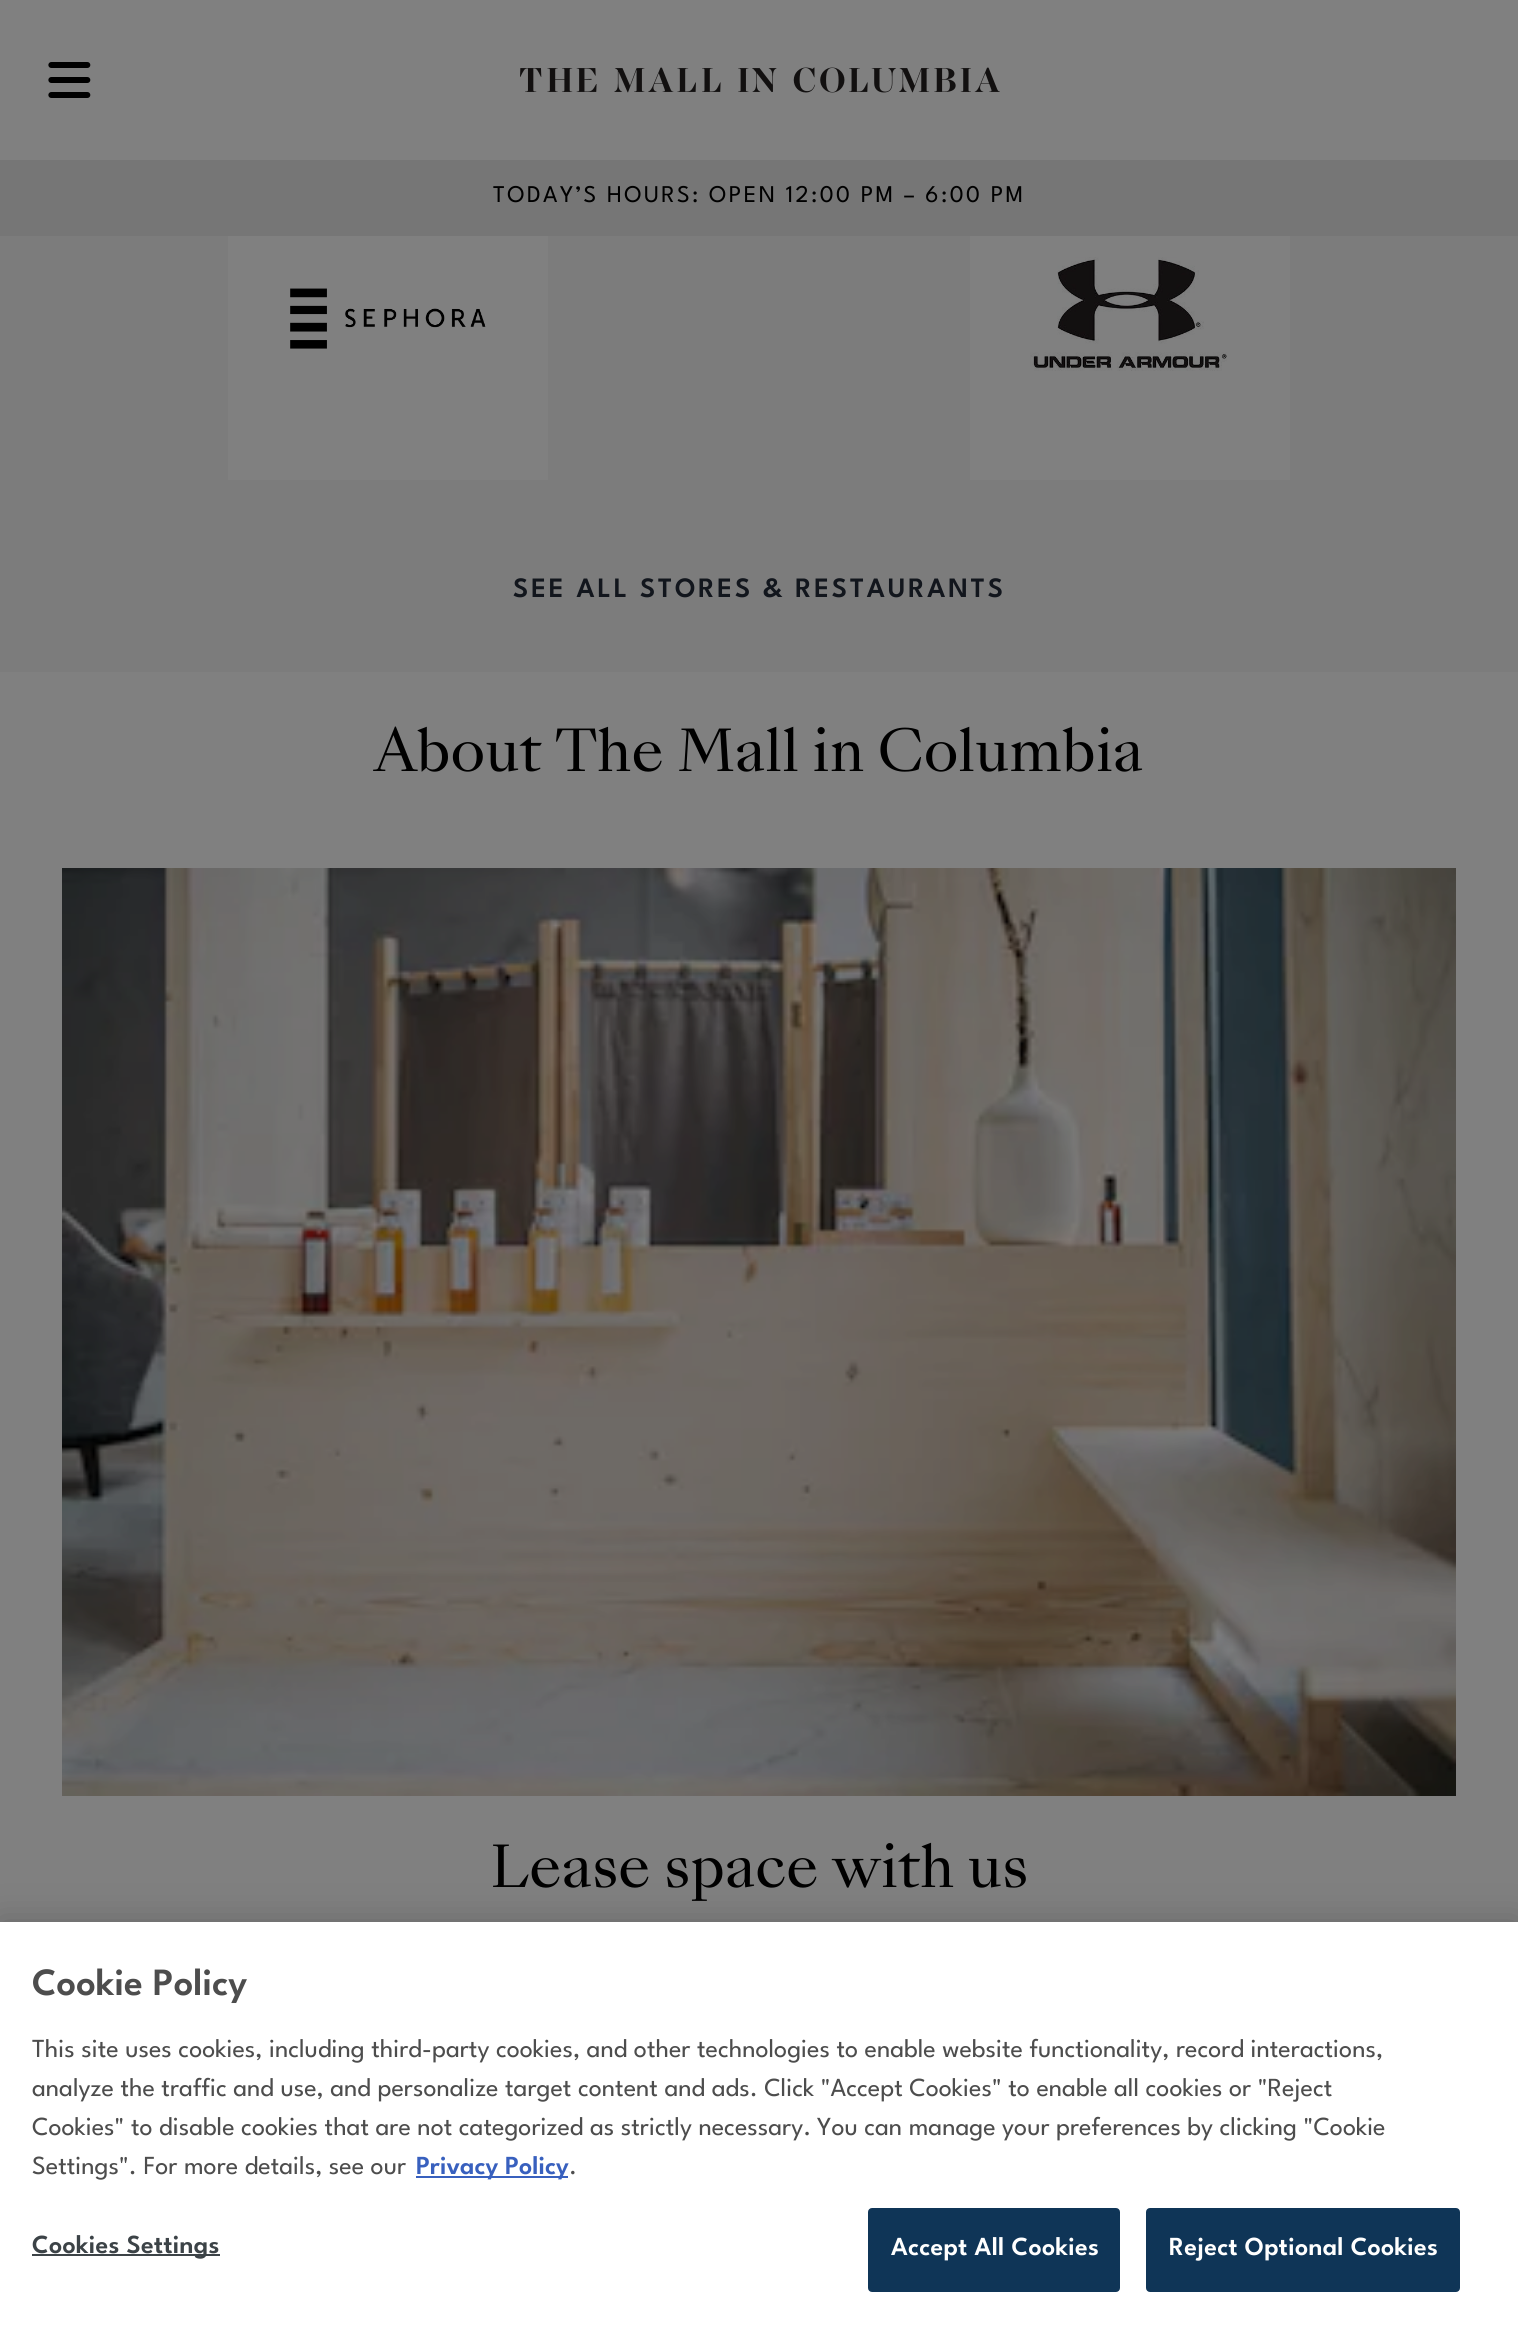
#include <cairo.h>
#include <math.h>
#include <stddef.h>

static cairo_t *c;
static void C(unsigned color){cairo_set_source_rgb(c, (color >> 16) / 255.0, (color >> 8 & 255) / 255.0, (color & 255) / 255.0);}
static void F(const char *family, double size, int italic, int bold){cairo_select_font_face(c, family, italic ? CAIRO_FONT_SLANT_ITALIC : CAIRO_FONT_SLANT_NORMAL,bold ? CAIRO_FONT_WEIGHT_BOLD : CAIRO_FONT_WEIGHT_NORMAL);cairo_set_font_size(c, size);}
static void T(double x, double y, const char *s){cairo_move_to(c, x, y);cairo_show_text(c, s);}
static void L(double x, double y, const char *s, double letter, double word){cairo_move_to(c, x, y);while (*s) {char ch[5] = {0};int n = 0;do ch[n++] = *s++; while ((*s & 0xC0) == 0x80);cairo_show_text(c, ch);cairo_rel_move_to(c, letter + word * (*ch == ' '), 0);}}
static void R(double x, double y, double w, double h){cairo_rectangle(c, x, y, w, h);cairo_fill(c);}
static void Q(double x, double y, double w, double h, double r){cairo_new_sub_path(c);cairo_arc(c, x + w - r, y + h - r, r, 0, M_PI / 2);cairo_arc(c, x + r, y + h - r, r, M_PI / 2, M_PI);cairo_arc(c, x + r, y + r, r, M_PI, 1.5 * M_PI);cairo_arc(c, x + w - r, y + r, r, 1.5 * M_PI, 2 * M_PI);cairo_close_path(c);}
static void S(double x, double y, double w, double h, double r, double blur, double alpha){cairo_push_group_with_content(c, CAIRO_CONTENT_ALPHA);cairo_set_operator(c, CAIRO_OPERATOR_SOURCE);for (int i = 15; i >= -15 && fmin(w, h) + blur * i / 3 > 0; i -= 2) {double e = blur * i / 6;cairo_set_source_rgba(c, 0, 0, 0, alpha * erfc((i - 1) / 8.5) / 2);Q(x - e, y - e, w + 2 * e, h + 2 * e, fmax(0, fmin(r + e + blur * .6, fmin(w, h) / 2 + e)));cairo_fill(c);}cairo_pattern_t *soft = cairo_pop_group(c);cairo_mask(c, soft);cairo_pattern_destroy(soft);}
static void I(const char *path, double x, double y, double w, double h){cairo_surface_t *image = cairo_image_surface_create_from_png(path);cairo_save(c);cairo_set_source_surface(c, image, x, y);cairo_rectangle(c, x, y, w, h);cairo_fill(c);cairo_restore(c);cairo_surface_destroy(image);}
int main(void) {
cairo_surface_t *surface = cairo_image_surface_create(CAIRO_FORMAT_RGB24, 1518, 2332);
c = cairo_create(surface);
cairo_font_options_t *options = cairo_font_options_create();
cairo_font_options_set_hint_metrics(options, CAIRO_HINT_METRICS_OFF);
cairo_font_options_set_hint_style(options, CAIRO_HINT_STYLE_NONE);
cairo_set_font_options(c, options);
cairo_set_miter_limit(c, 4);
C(0x808080);
cairo_paint(c);
I("1.png",48,62,43,36);
I("2.png",520,67,480,26);
C(0x767676);
R(0,160,1518,76);
F("League Spartan",24,0,0);
C(0x000000);
L(493,202,"TODAY’S HOURS: OPEN 12:00 PM – 6:00 PM",2.4,0);
C(0x7c7c7c);
R(0,236,1518,436);
C(0x808080);
R(228,236,320,244);
I("3.png",290,288,196,61);
R(970,236,320,244);
I("4.png",1030,257,197,114);
F("League Spartan SemiBold",28,0,0);
C(0x12161d);
L(513,597,"SEE ALL STORES & RESTAURANTS",2.8,0);
F("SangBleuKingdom",56,0,0);
C(0x000000);
T(374,771,"About The Mall in Columbia");
I("5.png",62,868,1394,928);
T(490,1887,"Lease space with us");
C(0x000000);
S(0,1922,1518,410,0,18,.2);
C(0xffffff);
R(0,1922,1518,410);
F("League Spartan SemiBold",38.5,0,0);
C(0x4d4d4d);
T(32,1995,"Cookie Policy");
F("League Spartan",26.02,0,0);
T(32,2057,"This site uses cookies, including third-party cookies, and other technologies to enable website functionality, record interactions,");
T(32,2096,"analyze the traffic and use, and personalize target content and ads. Click \"Accept Cookies\" to enable all cookies or \"Reject");
T(32,2135,"Cookies\" to disable cookies that are not categorized as strictly necessary.");
T(817,2135,"You can manage your preferences by clicking \"Cookie");
T(32,2174,"Settings\". For more details, see our");
C(0x3860be);
R(416,2176,152,2);
F("League Spartan SemiBold",26.02,0,0);
T(416,2174,"Privacy Policy");
F("League Spartan",26.02,0,0);
C(0x4d4d4d);
T(569,2174,".");
C(0x3c4347);
R(32,2254,188,2);
F("League Spartan SemiBold",26.02,0,0);
L(32,2253,"Cookies Settings",.25,0);
C(0x0f3557);
Q(869,2209,250,82,3);
cairo_fill_preserve(c);
cairo_stroke(c);
C(0xffffff);
L(891,2255,"Accept All Cookies",.25,0);
C(0x0f3557);
Q(1147,2209,312,82,3);
cairo_fill_preserve(c);
cairo_stroke(c);
C(0xffffff);
L(1169,2255,"Reject Optional Cookies",.25,0);
cairo_surface_write_to_png(surface, "o.png");
cairo_font_options_destroy(options);
cairo_destroy(c);
cairo_surface_destroy(surface);
return 0;
}
